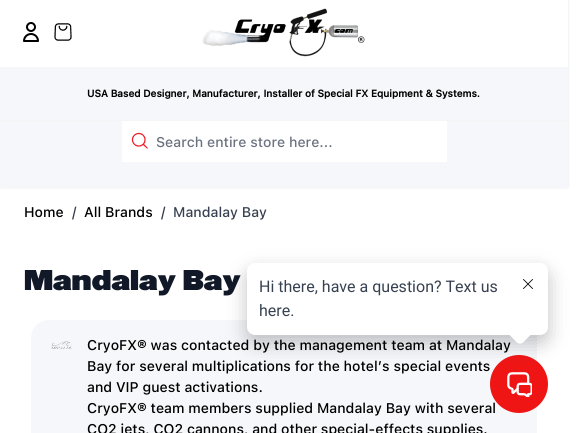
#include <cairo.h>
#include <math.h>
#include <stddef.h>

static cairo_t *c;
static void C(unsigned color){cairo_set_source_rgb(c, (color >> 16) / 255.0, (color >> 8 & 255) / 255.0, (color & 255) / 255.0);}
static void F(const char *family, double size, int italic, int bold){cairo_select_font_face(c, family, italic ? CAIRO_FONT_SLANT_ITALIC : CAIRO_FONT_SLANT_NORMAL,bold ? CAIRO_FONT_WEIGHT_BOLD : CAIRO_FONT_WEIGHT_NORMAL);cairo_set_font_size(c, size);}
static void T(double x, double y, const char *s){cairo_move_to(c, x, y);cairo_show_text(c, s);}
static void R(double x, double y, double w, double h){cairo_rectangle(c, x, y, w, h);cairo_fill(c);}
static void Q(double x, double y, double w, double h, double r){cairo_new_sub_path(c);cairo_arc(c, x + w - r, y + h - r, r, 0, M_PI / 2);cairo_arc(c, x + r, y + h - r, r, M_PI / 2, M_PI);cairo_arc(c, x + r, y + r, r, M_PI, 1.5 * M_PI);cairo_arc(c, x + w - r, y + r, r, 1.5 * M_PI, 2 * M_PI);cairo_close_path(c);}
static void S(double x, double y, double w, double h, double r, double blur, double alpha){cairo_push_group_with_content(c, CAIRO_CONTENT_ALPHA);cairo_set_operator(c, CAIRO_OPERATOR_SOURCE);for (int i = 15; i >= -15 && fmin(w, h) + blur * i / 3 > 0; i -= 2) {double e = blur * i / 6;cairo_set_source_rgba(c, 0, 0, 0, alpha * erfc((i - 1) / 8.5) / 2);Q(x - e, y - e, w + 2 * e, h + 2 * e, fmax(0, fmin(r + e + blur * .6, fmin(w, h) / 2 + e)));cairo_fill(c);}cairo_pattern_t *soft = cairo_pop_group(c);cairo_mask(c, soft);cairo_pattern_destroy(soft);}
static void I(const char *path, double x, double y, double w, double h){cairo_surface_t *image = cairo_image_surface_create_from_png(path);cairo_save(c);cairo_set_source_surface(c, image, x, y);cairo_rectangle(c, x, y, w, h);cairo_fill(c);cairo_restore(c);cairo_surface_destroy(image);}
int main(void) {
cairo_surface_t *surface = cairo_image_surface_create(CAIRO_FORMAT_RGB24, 583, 433);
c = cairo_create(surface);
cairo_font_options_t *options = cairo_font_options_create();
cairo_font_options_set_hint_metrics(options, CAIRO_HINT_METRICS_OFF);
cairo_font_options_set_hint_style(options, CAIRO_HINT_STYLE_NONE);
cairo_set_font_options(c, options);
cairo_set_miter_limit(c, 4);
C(0xffffff);
cairo_paint(c);
cairo_save(c);
cairo_set_fill_rule(c,CAIRO_FILL_RULE_EVEN_ODD);
cairo_new_path(c);
cairo_move_to(c,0,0);
cairo_line_to(c,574,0);
cairo_line_to(c,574,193);
cairo_line_to(c,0,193);
cairo_close_path(c);
cairo_move_to(c,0,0);
cairo_line_to(c,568,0);
cairo_line_to(c,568,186);
cairo_line_to(c,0,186);
cairo_close_path(c);
cairo_clip(c);
C(0x000000);
S(0,1,568,186,0,1.5,.1);
cairo_restore(c);
I("1.png",202,8,163,49);
C(0xf5f7fa);
R(0,67,568,53);
F("SF Pro Text",10,0,1);
C(0x000000);
T(87,97,"USA Based Designer, Manufacturer, Installer of Special FX Equipment & Systems.");
I("2.png",23,22,16,20);
I("3.png",54,23,18,18);
C(0xf5f5f5);
R(0,120,568,1);
C(0xf5f7fa);
R(0,121,568,66);
C(0xffffff);
R(122,121,325,41);
I("4.png",131,132,17,17);
F("SF Pro Text Medium",14,0,0);
C(0x6b7280);
T(156,147,"Search entire store here...");
C(0x000000);
T(24,217,"Home");
C(0x374151);
T(72,217,"/");
C(0x000000);
T(84,217,"All Brands");
C(0x374151);
T(161,217,"/");
T(173,217,"Mandalay Bay");
F("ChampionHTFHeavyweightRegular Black",25,0,0);
C(0x111827);
T(24,290,"Mandalay Bay");
C(0xf5f7fa);
Q(31,320,506,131,18);
cairo_fill(c);
I("5.png",51,341,21,8);
F("SF Pro Text Medium",14,0,0);
C(0x000000);
T(87,350,"CryoFX® was contacted by the management team at Mandalay");
T(87,371,"Bay for several multiplications for the hotel’s special events");
T(87,392,"and VIP guest activations.");
T(87,413,"CryoFX® team members supplied Mandalay Bay with several");
T(87,434,"CO2 jets, CO2 cannons, and other special-effects supplies.");
C(0xef1515);
cairo_new_path(c);
cairo_arc(c,519,384,29,0,2 * M_PI);
cairo_fill(c);
I("7.png",507,372,25,25);
C(0x000000);
S(247,271,301,72,8,10,.24);
C(0xffffff);
Q(247,263,301,72,8);
cairo_fill(c);
F("Roboto",16,0,0);
C(0x374151);
T(259,292,"Hi there, have a question? Text us");
T(259,316,"here.");
C(0xffffff);
cairo_new_path(c);
cairo_move_to(c,523,319.5);
cairo_line_to(c,531.5,328);
cairo_curve_to(c,533,329.5,533,332.5,531.5,334);
cairo_line_to(c,523,342.5);
cairo_curve_to(c,521.5,344,518.5,344,517,342.5);
cairo_line_to(c,508.5,334);
cairo_curve_to(c,507,332.5,507,329.5,508.5,328);
cairo_line_to(c,517,319.5);
cairo_curve_to(c,518.5,318,521.5,318,523,319.5);
cairo_close_path(c);
cairo_fill(c);
I("6.png",523,279,10,10);
cairo_surface_write_to_png(surface, "o.png");
cairo_font_options_destroy(options);
cairo_destroy(c);
cairo_surface_destroy(surface);
return 0;
}
